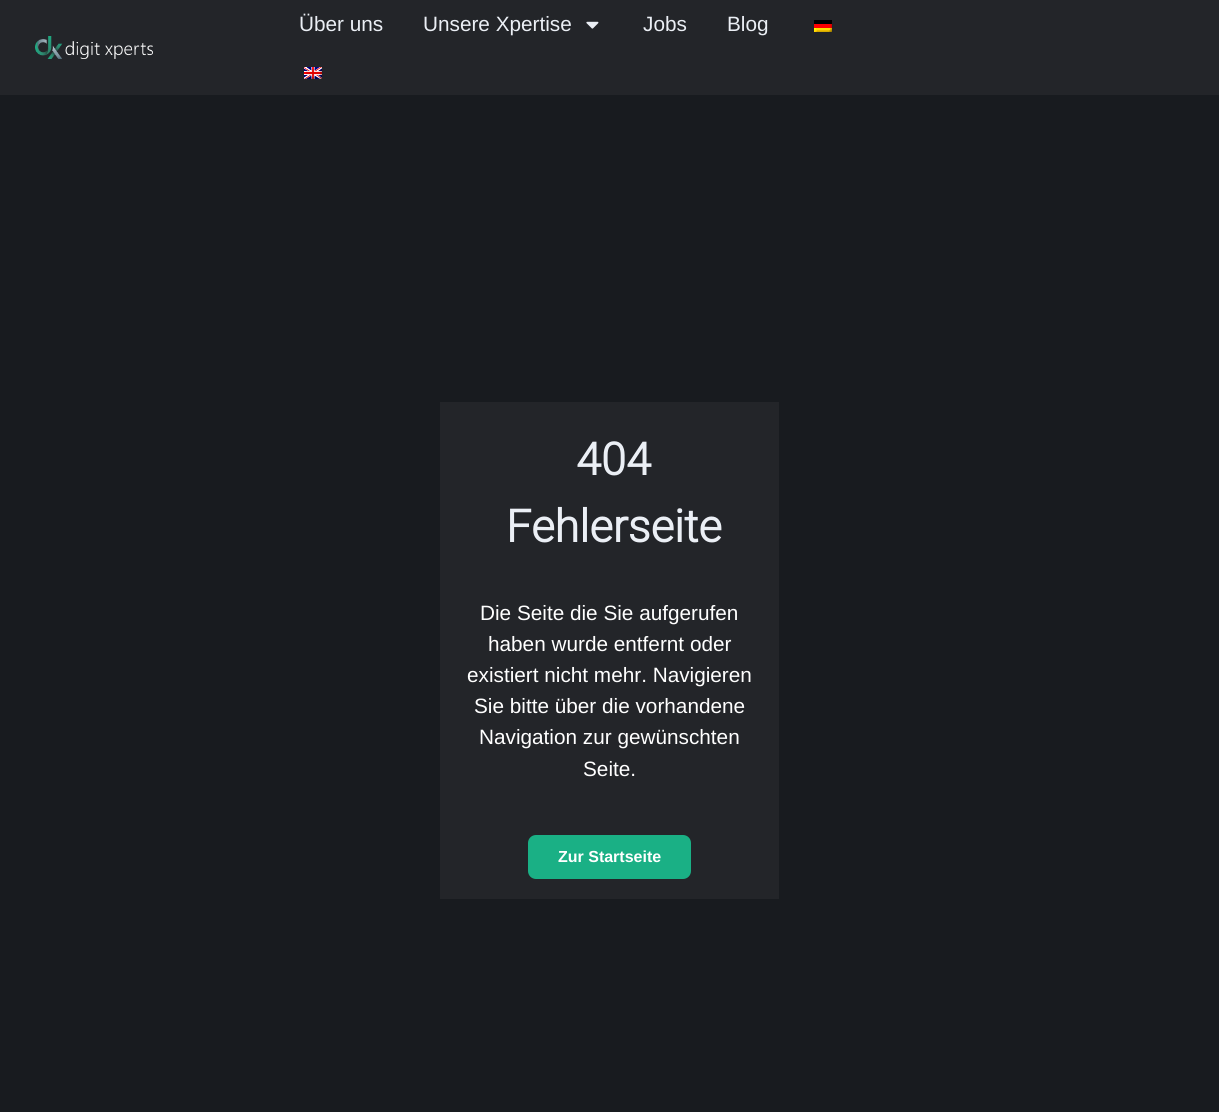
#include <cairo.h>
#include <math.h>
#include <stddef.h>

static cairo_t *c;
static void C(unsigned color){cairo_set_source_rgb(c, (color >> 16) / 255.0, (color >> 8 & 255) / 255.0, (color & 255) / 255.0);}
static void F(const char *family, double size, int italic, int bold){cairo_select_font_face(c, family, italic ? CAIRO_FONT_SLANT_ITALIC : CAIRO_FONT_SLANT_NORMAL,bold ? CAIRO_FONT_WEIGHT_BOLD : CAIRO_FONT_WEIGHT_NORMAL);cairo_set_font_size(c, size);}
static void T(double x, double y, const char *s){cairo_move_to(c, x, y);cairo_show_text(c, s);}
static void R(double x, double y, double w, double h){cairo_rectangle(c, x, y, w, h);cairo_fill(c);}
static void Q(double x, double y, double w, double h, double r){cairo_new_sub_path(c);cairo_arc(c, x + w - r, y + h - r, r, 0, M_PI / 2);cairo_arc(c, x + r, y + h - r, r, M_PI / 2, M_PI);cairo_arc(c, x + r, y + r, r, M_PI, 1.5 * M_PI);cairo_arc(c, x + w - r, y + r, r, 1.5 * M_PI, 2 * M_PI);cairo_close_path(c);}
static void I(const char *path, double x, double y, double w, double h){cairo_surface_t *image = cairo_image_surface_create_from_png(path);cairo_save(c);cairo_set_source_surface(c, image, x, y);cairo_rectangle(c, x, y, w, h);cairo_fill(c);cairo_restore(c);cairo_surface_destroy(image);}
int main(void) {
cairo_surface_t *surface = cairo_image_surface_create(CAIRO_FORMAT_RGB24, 1219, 1112);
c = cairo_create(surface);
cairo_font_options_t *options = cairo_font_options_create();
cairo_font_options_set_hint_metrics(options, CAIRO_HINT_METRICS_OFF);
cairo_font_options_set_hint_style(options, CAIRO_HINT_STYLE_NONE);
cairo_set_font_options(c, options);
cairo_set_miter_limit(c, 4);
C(0x181b1f);
cairo_paint(c);
C(0x232529);
R(0,0,1219,95);
F("Liberation Sans",20.75,0,0);
C(0xebeff5);
T(299,31,"Über uns");
T(423,31,"Unsere Xpertise");
I("1.png",586,21,13,8);
T(643,31,"Jobs");
T(727,31,"Blog");
I("2.png",814,20,18,12);
I("3.png",304,67,18,12);
I("4.png",35,36,118,23);
C(0x232529);
R(440,402,339,497);
F("Roboto",45,0,1);
C(0xebeff5);
T(576,475,"404");
T(506,542,"Fehlerseite");
F("Liberation Sans",20.75,0,0);
C(0xffffff);
T(480,620,"Die Seite die Sie aufgerufen");
T(488,651,"haben wurde entfernt oder");
T(467,682,"existiert nicht mehr. Navigieren");
T(474,713,"Sie bitte über die vorhandene");
T(479,744,"Navigation zur gewünschten");
T(583,776,"Seite.");
C(0x1ab085);
Q(528,835,163,44,8);
cairo_fill(c);
F("Liberation Sans",16,0,1);
C(0xffffff);
T(558,862,"Zur Startseite");
cairo_surface_write_to_png(surface, "o.png");
cairo_font_options_destroy(options);
cairo_destroy(c);
cairo_surface_destroy(surface);
return 0;
}
